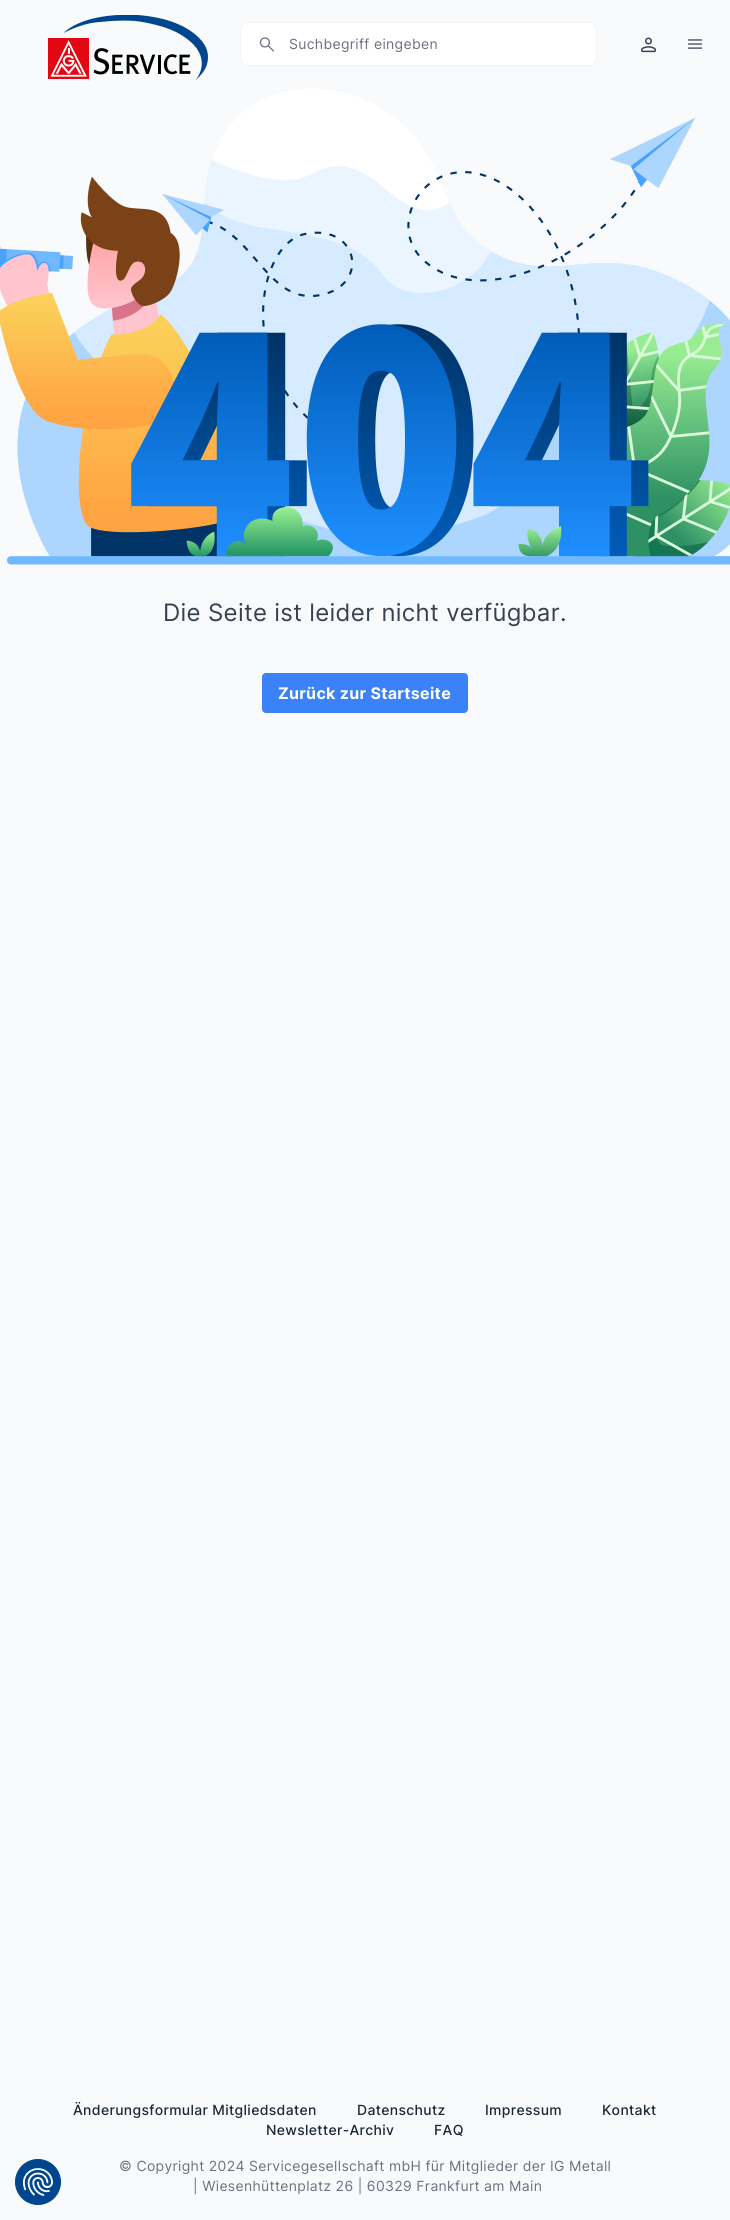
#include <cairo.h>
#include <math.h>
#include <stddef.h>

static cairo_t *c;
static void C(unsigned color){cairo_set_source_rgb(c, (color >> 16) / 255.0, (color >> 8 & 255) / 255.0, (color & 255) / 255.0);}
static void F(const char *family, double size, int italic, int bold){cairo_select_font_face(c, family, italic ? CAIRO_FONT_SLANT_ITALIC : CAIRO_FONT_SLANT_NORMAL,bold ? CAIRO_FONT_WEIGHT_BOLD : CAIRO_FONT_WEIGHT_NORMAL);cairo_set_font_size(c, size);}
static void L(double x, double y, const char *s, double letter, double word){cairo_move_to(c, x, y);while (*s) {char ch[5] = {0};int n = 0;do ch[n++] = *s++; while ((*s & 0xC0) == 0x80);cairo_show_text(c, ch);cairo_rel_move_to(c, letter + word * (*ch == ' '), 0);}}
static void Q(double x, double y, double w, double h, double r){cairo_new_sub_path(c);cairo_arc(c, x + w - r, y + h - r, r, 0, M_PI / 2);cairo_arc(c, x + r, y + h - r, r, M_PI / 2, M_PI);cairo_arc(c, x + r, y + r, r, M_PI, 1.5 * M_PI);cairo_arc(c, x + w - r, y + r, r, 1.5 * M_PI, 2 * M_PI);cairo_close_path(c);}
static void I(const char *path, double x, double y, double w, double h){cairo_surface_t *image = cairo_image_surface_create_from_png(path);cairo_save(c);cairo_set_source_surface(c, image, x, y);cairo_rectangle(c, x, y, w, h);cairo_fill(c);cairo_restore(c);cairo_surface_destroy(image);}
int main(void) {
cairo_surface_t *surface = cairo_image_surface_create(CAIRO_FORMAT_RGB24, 730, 2220);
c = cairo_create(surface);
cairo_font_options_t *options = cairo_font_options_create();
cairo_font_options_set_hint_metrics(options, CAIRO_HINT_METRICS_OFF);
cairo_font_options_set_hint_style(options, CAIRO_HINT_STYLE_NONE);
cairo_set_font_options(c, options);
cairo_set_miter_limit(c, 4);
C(0xf9fafb);
cairo_paint(c);
C(0x00468e);
cairo_arc(c,38,2182,22.5,0,2 * M_PI);
cairo_fill_preserve(c);
cairo_set_line_width(c,1);
cairo_stroke(c);
I("1.png",23,2168,30,28);
I("2.png",48,15,160,66);
C(0xffffff);
Q(240.5,22.5,356,43,7.5);
cairo_fill_preserve(c);
C(0xf3f4f6);
cairo_stroke(c);
I("3.png",259,37,16,15);
F("Inter",14,0,0);
C(0x6b7280);
L(289,49,"Suchbegriff eingeben",.32,0);
I("4.png",641,37,15,16);
I("5.png",688,39,15,10);
I("6.png",0,88,730,477);
F("Inter",24,0,0);
C(0x374151);
L(163,621,"Die Seite ist leider nicht verfügbar.",.32,0);
C(0x3b82f6);
Q(262,673,206,40,4);
cairo_fill(c);
F("Inter",16,0,1);
C(0xffffff);
L(278,699,"Zurück zur Startseite",.32,0);
F("Inter Medium",14,0,0);
C(0x1f2937);
L(73,2115,"Änderungsformular Mitgliedsdaten",.32,0);
L(357,2115,"Datenschutz",.32,0);
L(485,2115,"Impressum",.32,0);
L(602,2115,"Kontakt",.32,0);
L(266,2135,"Newsletter-Archiv",.32,0);
L(434,2135,"FAQ",.32,0);
F("Inter",14,0,0);
C(0x6b7280);
L(119,2171,"© Copyright 2024 Servicegesellschaft mbH für Mitglieder der IG Metall",.32,0);
L(193,2191,"| Wiesenhüttenplatz 26 | 60329 Frankfurt am Main",.32,0);
cairo_surface_write_to_png(surface, "o.png");
cairo_font_options_destroy(options);
cairo_destroy(c);
cairo_surface_destroy(surface);
return 0;
}
